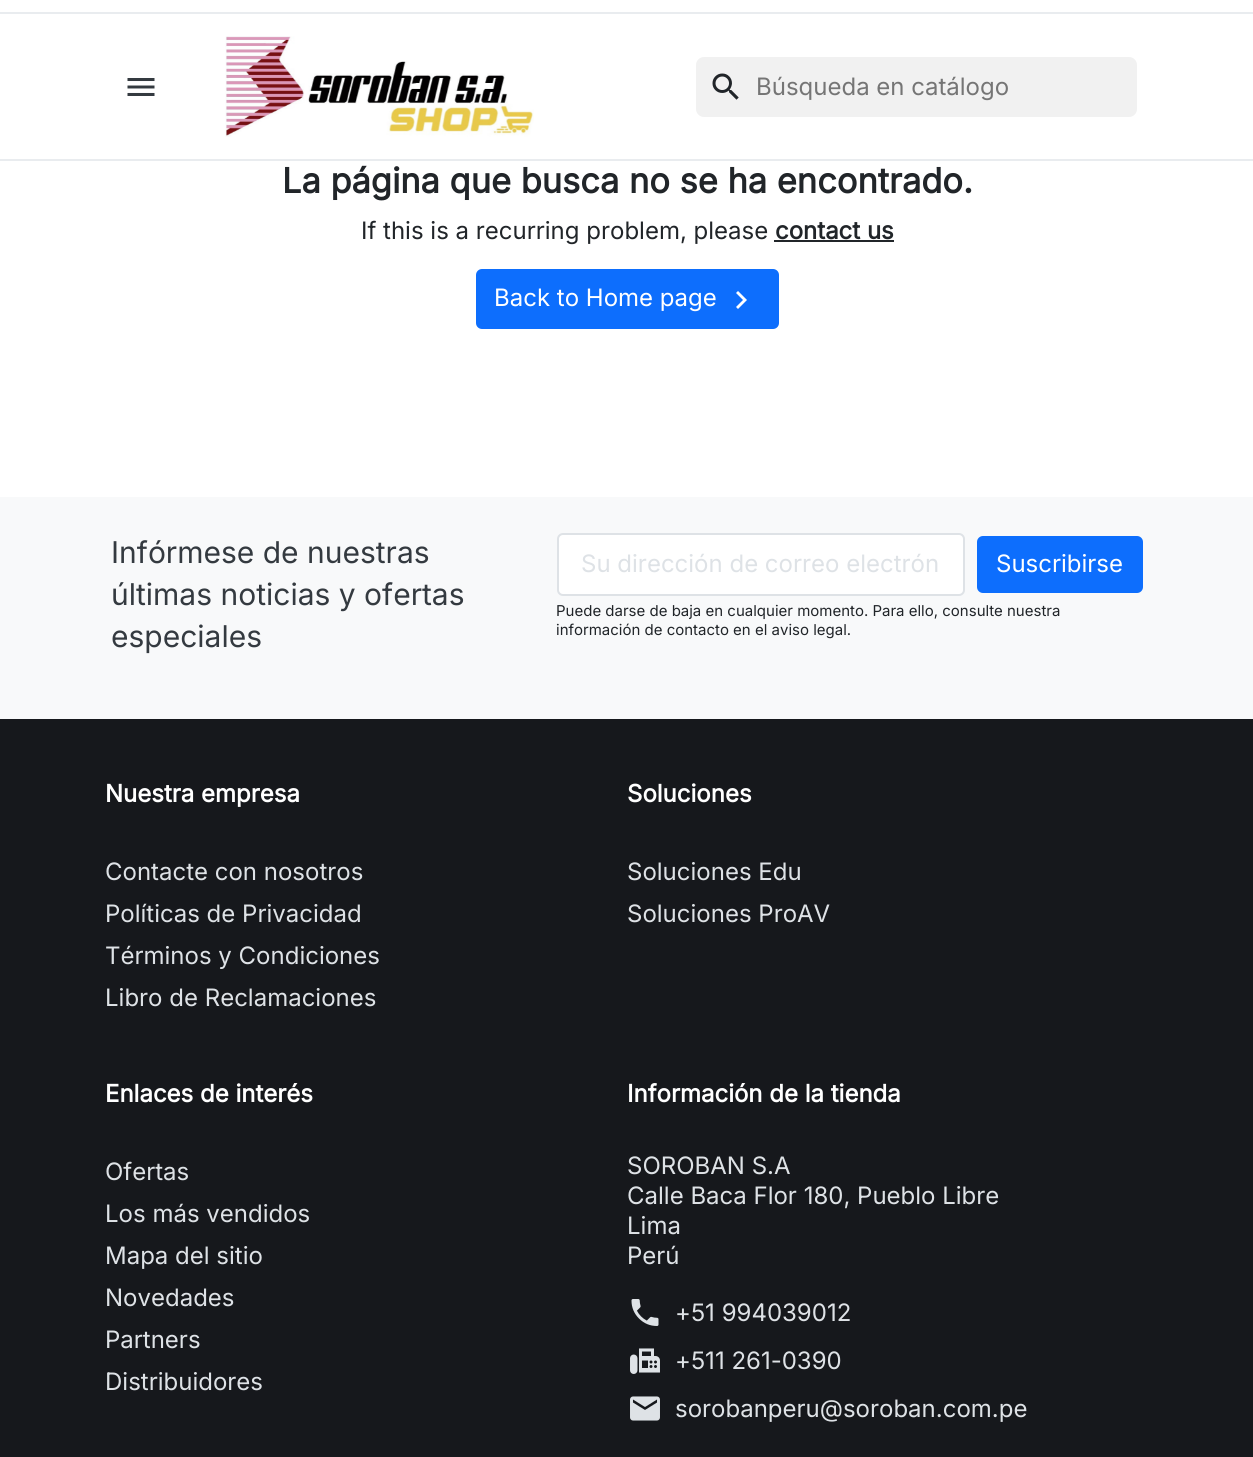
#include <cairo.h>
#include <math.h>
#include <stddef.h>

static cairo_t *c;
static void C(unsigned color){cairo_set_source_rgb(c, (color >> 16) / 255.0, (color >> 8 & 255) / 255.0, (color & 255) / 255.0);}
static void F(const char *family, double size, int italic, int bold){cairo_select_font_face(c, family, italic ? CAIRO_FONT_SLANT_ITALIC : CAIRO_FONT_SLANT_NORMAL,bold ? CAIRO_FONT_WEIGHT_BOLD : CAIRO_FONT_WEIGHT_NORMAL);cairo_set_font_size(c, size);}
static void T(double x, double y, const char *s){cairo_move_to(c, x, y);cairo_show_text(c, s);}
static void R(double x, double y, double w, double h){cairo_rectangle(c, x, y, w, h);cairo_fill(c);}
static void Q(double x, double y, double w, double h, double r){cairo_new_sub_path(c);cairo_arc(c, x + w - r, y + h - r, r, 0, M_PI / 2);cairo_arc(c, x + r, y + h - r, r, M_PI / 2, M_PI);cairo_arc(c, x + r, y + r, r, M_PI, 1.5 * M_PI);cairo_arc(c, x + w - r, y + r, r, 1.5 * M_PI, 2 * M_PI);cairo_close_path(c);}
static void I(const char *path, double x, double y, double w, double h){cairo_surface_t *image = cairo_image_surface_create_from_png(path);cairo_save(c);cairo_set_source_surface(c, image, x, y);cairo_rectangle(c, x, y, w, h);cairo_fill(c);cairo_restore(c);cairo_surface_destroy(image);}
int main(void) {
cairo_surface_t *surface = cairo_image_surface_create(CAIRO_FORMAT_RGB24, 1253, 1457);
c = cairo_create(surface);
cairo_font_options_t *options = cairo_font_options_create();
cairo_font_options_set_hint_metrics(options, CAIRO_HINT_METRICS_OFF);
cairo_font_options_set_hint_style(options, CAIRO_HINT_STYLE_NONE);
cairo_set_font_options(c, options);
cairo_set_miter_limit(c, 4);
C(0xffffff);
cairo_paint(c);
C(0xe9ecef);
R(0,12,1253,2);
R(0,159,1253,2);
I("1.png",127,78,28,18);
I("2.png",225,36,309,101);
C(0xf1f1f1);
Q(696,57,441,60,8);
cairo_fill(c);
I("3.png",712,73,27,27);
F("Inter",24,0,0);
C(0x757575);
T(756,95,"Búsqueda en catálogo");
F("Inter",34.4,0,1);
C(0x212529);
T(282,193,"La página que busca no se ha encontrado.");
F("Inter",24,0,0);
T(361,239,"If this is a recurring problem, please");
F("Inter",24,0,1);
T(775,239,"contact us");
R(774,240,120,2);
C(0x0d6efd);
Q(477,270,301,58,5);
cairo_fill_preserve(c);
cairo_stroke(c);
F("Inter",24,0,0);
C(0xffffff);
T(494,306,"Back to Home page");
cairo_new_path(c);
cairo_move_to(c,736,307);
cairo_line_to(c,743,300);
cairo_line_to(c,736,293);
cairo_line_to(c,738,291);
cairo_line_to(c,747,300);
cairo_line_to(c,738,309);
cairo_close_path(c);
cairo_fill(c);
C(0xf8f9fa);
R(0,497,1253,222);
F("Inter",30,0,0);
C(0x343a40);
T(111,563,"Infórmese de nuestras");
T(111,605,"últimas noticias y ofertas");
T(111,647,"especiales");
C(0xffffff);
Q(558,534,406,61,5);
cairo_fill_preserve(c);
C(0xdee2e6);
cairo_stroke(c);
F("Inter",24,0,0);
T(581,572,"Su dirección de correo electrón");
C(0x0d6efd);
Q(978,537,164,55,5);
cairo_fill_preserve(c);
cairo_stroke(c);
C(0xffffff);
T(996,572,"Suscribirse");
F("Inter",15,0,0);
C(0x212529);
T(556,616,"Puede darse de baja en cualquier momento. Para ello, consulte nuestra");
T(556,635,"información de contacto en el aviso legal.");
C(0x16181c);
R(0,719,1253,738);
F("Inter",24,0,1);
C(0xffffff);
T(105,802,"Nuestra empresa");
F("Inter",24,0,0);
C(0xdee2e6);
T(105,880,"Contacte con nosotros");
T(105,922,"Políticas de Privacidad");
T(105,964,"Términos y Condiciones");
T(105,1006,"Libro de Reclamaciones");
F("Inter",24,0,1);
C(0xffffff);
T(627,802,"Soluciones");
F("Inter",24,0,0);
C(0xdee2e6);
T(627,880,"Soluciones Edu");
T(627,922,"Soluciones ProAV");
F("Inter",24,0,1);
C(0xffffff);
T(105,1102,"Enlaces de interés");
F("Inter",24,0,0);
C(0xdee2e6);
T(105,1180,"Ofertas");
T(105,1222,"Los más vendidos");
T(105,1264,"Mapa del sitio");
T(105,1306,"Novedades");
T(105,1348,"Partners");
T(105,1390,"Distribuidores");
F("Inter",24,0,1);
C(0xffffff);
T(627,1102,"Información de la tienda");
F("Inter",24,0,0);
C(0xdee2e6);
T(627,1174,"SOROBAN S.A");
T(627,1204,"Calle Baca Flor 180, Pueblo Libre");
T(627,1234,"Lima");
T(627,1264,"Perú");
I("4.png",631,1299,28,27);
T(675,1321,"+51 994039012");
I("5.png",630,1348,30,26);
T(675,1369,"+511 261-0390");
I("6.png",630,1396,30,25);
T(675,1417,"sorobanperu@soroban.com.pe");
cairo_surface_write_to_png(surface, "o.png");
cairo_font_options_destroy(options);
cairo_destroy(c);
cairo_surface_destroy(surface);
return 0;
}
